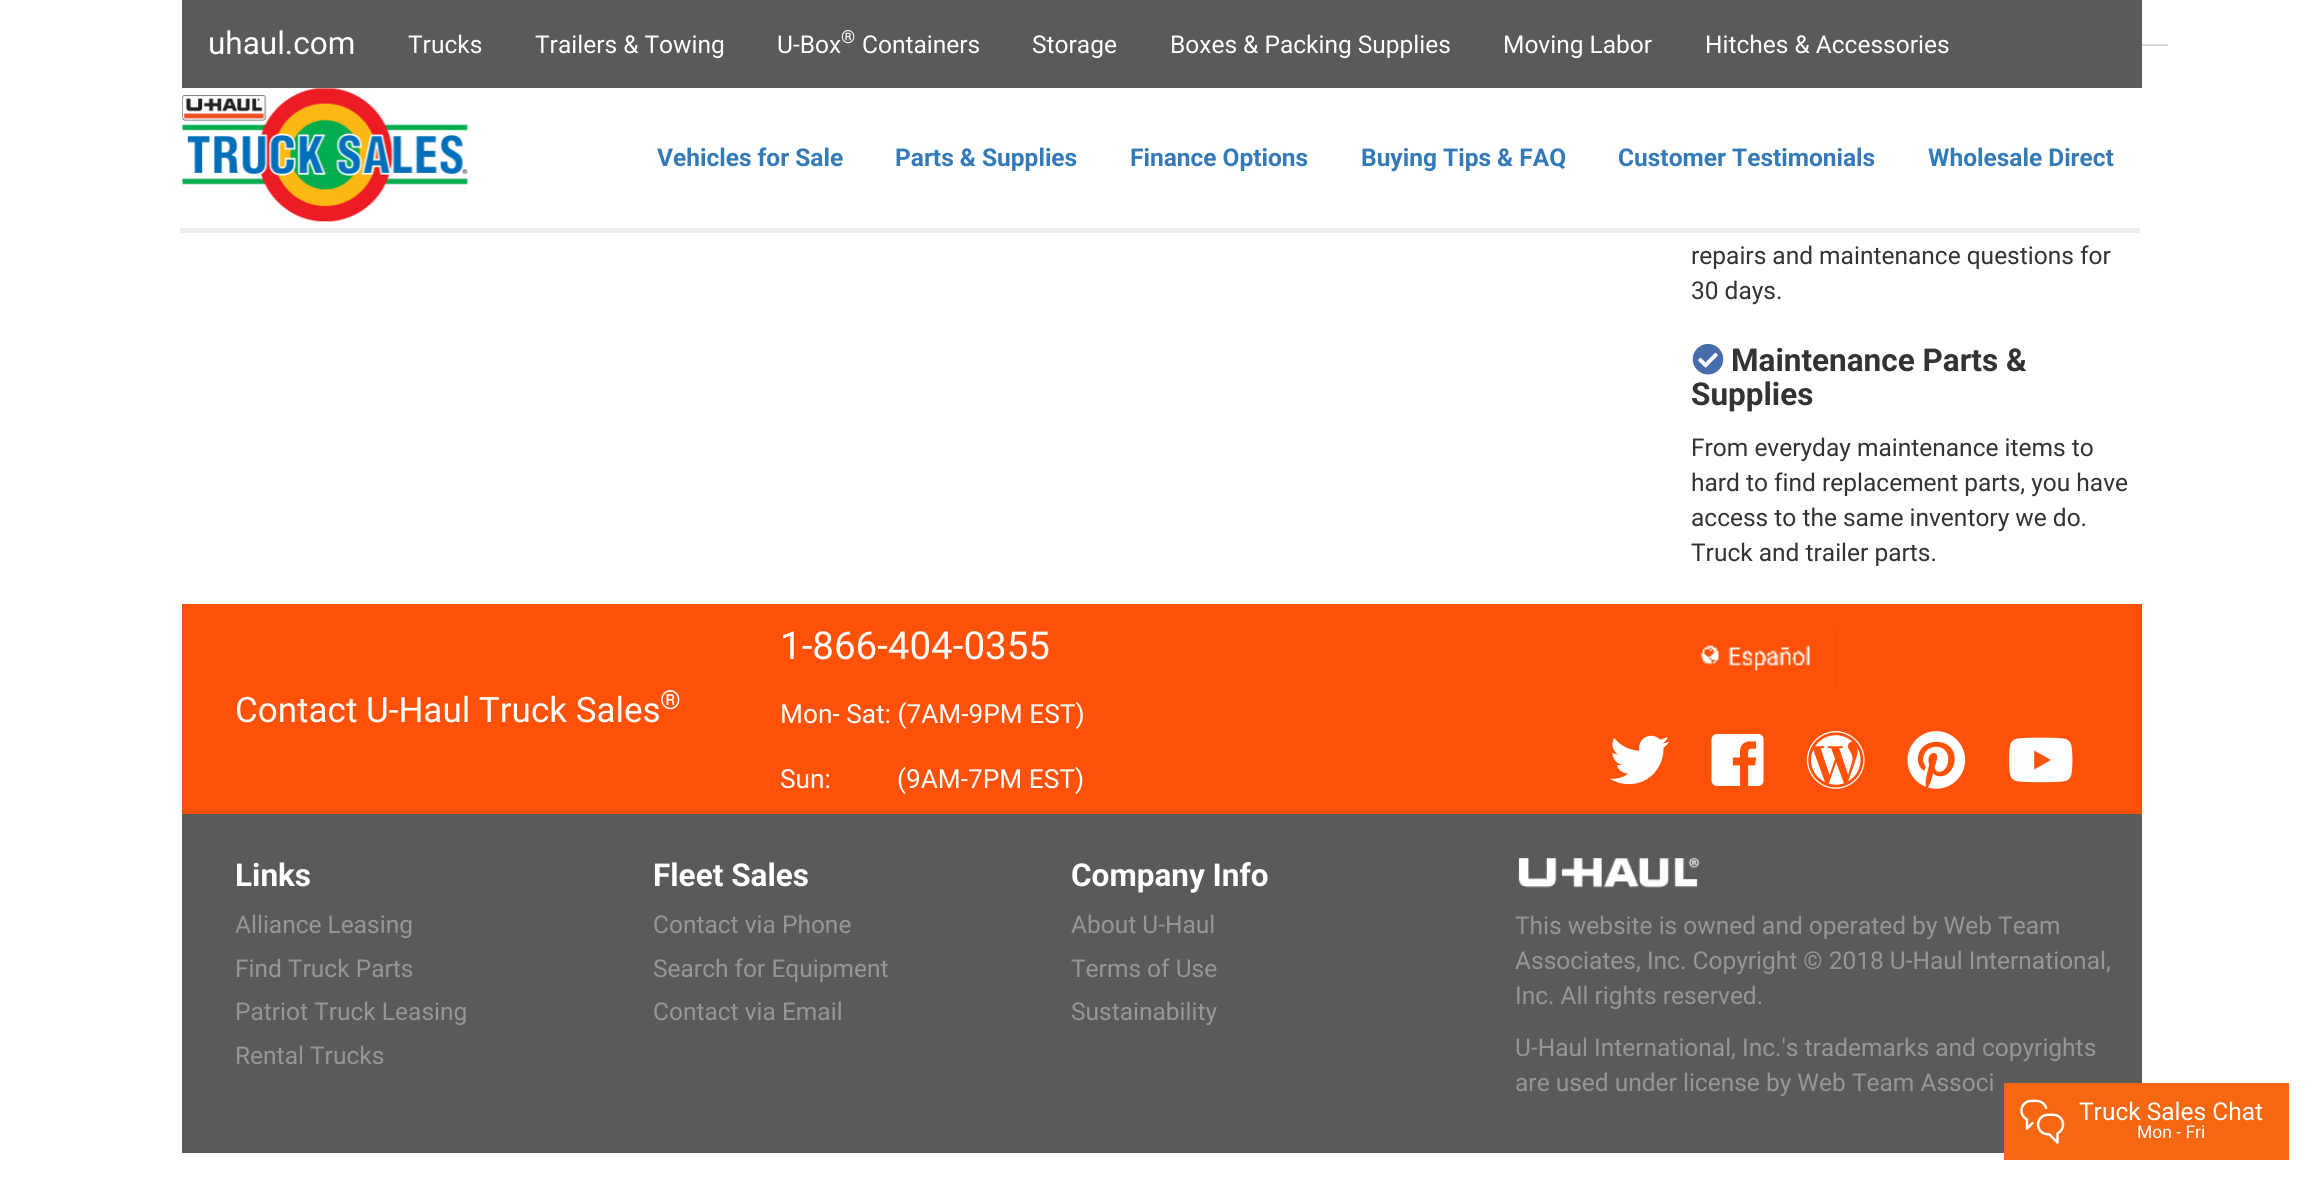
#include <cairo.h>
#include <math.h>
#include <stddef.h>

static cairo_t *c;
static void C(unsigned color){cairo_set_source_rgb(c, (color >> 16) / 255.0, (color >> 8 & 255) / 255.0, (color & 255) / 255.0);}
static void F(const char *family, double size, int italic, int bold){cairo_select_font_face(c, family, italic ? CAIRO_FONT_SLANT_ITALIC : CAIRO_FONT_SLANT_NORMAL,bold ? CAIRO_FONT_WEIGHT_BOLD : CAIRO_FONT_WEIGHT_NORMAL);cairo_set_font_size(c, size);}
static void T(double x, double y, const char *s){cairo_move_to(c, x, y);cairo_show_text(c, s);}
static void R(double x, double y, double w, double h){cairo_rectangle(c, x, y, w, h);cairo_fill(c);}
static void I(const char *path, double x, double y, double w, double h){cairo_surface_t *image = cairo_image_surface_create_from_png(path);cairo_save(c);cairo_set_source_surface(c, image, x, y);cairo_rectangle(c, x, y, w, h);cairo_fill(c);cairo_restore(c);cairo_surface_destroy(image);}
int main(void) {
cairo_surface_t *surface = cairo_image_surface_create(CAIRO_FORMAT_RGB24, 2323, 1187);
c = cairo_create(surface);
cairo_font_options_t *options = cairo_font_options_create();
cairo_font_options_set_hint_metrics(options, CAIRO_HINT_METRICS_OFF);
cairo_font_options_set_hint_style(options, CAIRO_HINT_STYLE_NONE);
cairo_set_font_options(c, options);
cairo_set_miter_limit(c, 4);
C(0xffffff);
cairo_paint(c);
C(0x5a5a5a);
R(182,0,1960,88);
F("Roboto",31.5,0,0);
C(0xffffff);
T(208,54,"uhaul.com");
F("Roboto",24.5,0,0);
T(408,53,"Trucks");
T(535,53,"Trailers & Towing");
T(777,53,"U-Box");
F("Roboto",18,0,0);
T(841,43,"®");
F("Roboto",24.5,0,0);
T(862,53,"Containers");
T(1032,53,"Storage");
T(1170,53,"Boxes & Packing Supplies");
T(1503,53,"Moving Labor");
T(1705,53,"Hitches & Accessories");
I("1.png",182,87,286,135);
F("Roboto",24.5,0,1);
C(0x337ab7);
T(657,166,"Vehicles for Sale");
T(895,166,"Parts & Supplies");
T(1130,166,"Finance Options");
T(1361,166,"Buying Tips & FAQ");
T(1618,166,"Customer Testimonials");
T(1928,166,"Wholesale Direct");
C(0xeeeeee);
R(180,228,1960,5);
C(0xdadada);
R(2142,44,26,2);
F("Roboto",24.5,0,0);
C(0x333333);
T(1691,264,"repairs and maintenance questions for");
T(1691,299,"30 days.");
I("2.png",1692,343,32,32);
F("Roboto",31.5,0,1);
T(1731,371,"Maintenance Parts &");
T(1691,405,"Supplies");
F("Roboto",24.5,0,0);
T(1691,456,"From everyday maintenance items to");
T(1691,491,"hard to find replacement parts, you have");
T(1691,526,"access to the same inventory we do.");
T(1691,561,"Truck and trailer parts.");
C(0xff5107);
R(182,604,1960,210);
F("Roboto",35,0,0);
C(0xffffff);
T(235,722,"Contact U-Haul Truck Sales");
F("Roboto",26.25,0,0);
T(660,709,"®");
F("Roboto",38.5,0,0);
T(780,659,"1-866-404-0355");
F("Roboto",26.25,0,0);
T(780,723,"Mon- Sat: (7AM-9PM EST)");
T(780,788,"Sun:");
T(897,788,"(9AM-7PM EST)");
I("3.png",1700,629,137,60);
I("4.png",1610,735,60,50);
I("5.png",1711,733,53,53);
I("6.png",1806,731,59,58);
I("7.png",1907,731,59,58);
I("8.png",2009,737,64,46);
C(0x5a5a5a);
R(182,814,1960,339);
F("Roboto",31.5,0,1);
C(0xffffff);
T(235,886,"Links");
F("Roboto",24.5,0,0);
C(0x969696);
T(235,933,"Alliance Leasing");
T(235,977,"Find Truck Parts");
T(235,1020,"Patriot Truck Leasing");
T(235,1064,"Rental Trucks");
F("Roboto",31.5,0,1);
C(0xffffff);
T(653,886,"Fleet Sales");
F("Roboto",24.5,0,0);
C(0x969696);
T(653,933,"Contact via Phone");
T(653,977,"Search for Equipment");
T(653,1020,"Contact via Email");
F("Roboto",31.5,0,1);
C(0xffffff);
T(1071,886,"Company Info");
F("Roboto",24.5,0,0);
C(0x969696);
T(1071,933,"About U-Haul");
T(1071,977,"Terms of Use");
T(1071,1020,"Sustainability");
I("9.png",1518,858,182,30);
T(1515,934,"This website is owned and operated by Web Team");
T(1515,969,"Associates, Inc. Copyright © 2018 U-Haul International,");
T(1515,1004,"Inc. All rights reserved.");
T(1515,1056,"U-Haul International, Inc.'s trademarks and copyrights");
T(1515,1091,"are used under license by Web Team Associ");
C(0xf66711);
R(2004,1083,285,77);
I("10.png",2020,1099,45,45);
C(0xffffff);
T(2079,1120,"Truck Sales Chat");
F("Roboto",17.5,0,0);
T(2137,1138,"Mon - Fri");
cairo_surface_write_to_png(surface, "o.png");
cairo_font_options_destroy(options);
cairo_destroy(c);
cairo_surface_destroy(surface);
return 0;
}
